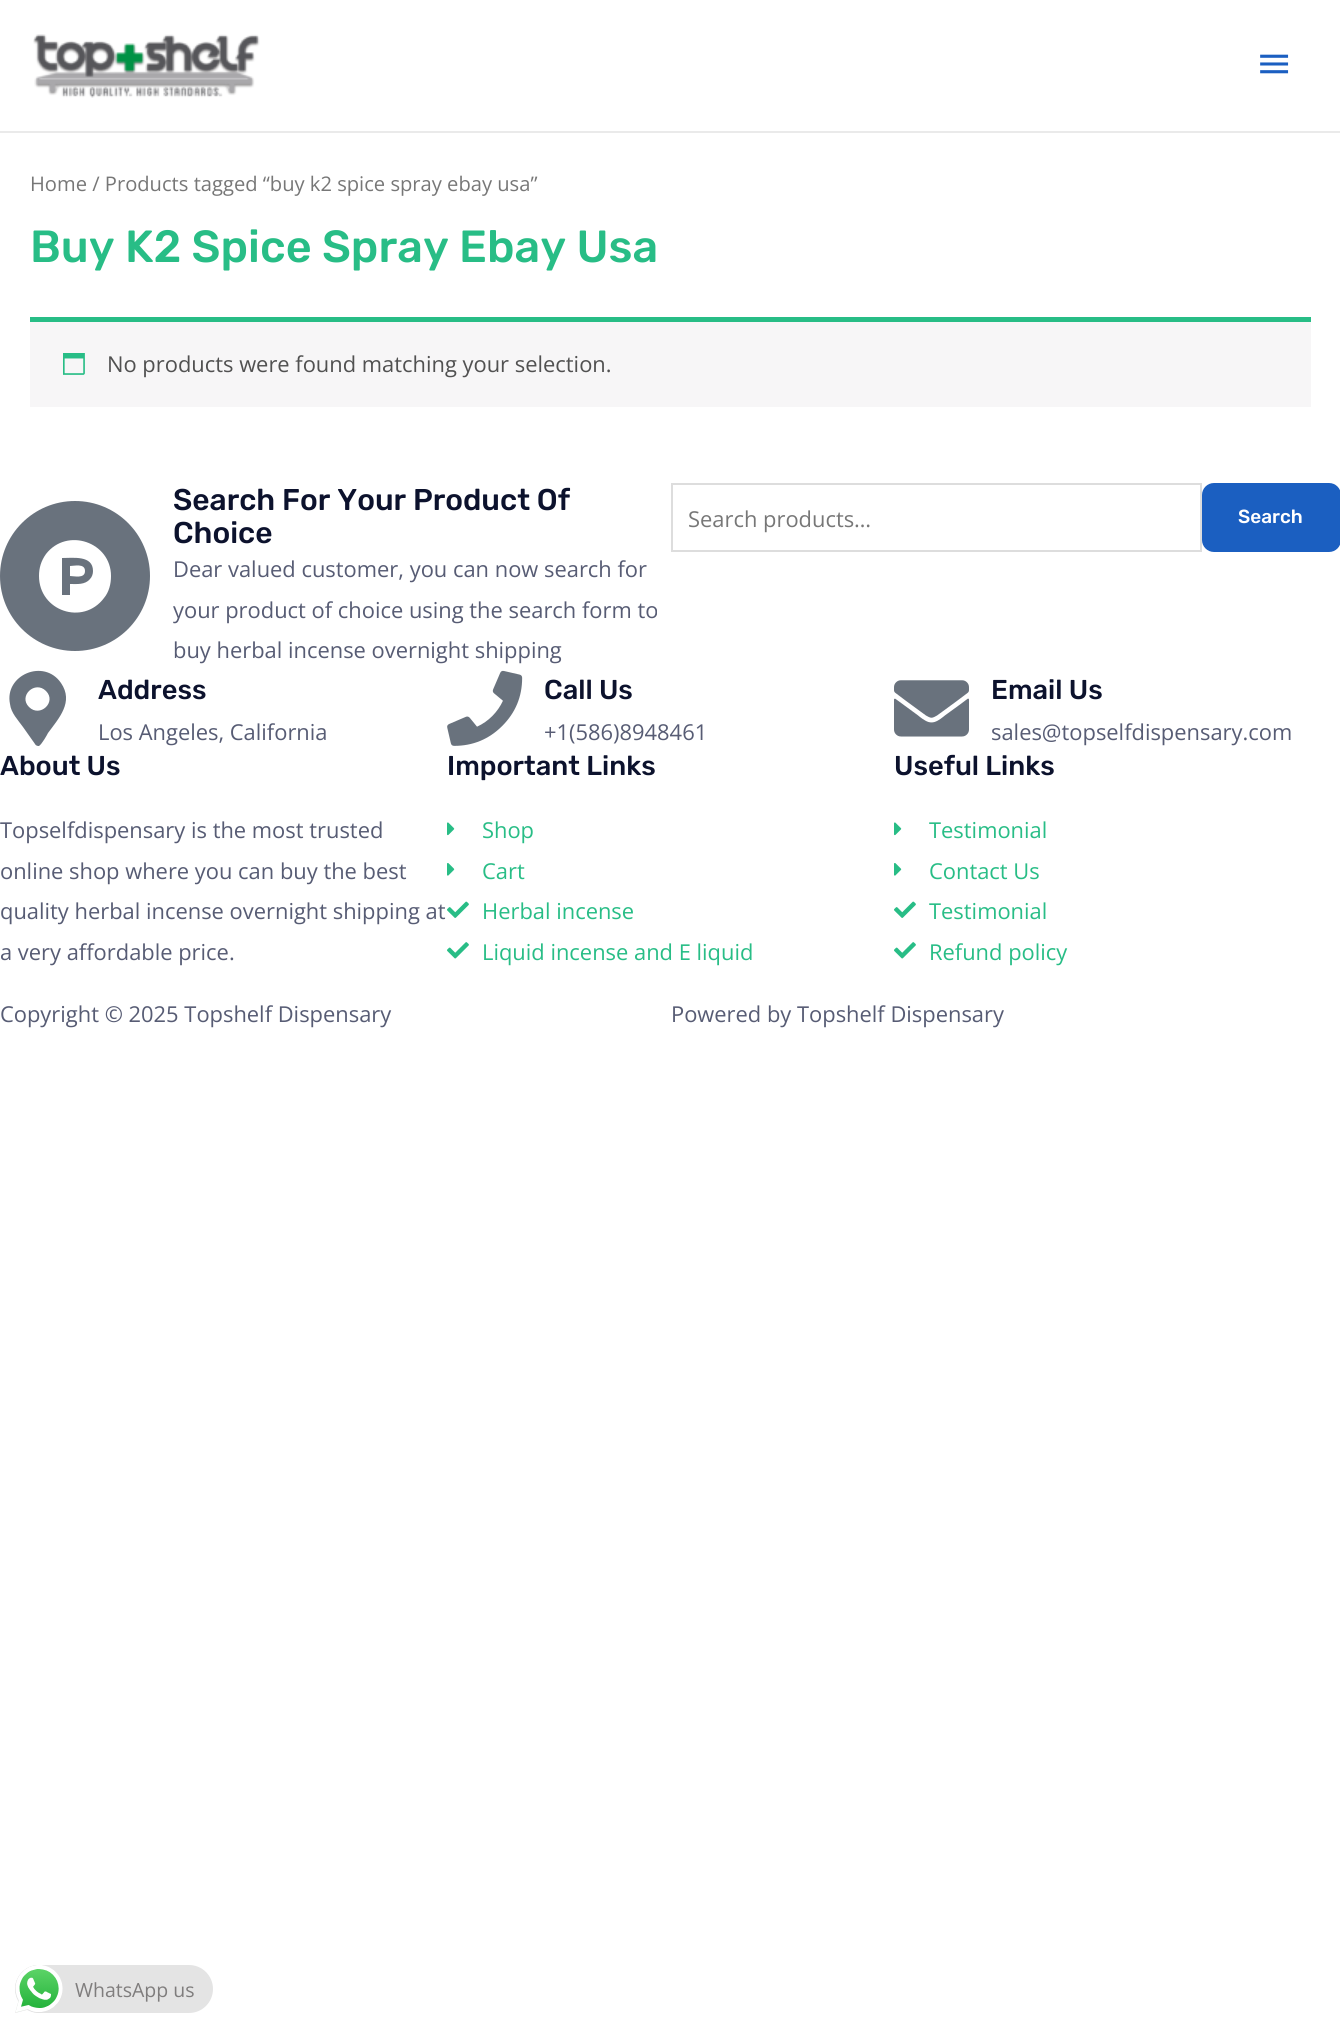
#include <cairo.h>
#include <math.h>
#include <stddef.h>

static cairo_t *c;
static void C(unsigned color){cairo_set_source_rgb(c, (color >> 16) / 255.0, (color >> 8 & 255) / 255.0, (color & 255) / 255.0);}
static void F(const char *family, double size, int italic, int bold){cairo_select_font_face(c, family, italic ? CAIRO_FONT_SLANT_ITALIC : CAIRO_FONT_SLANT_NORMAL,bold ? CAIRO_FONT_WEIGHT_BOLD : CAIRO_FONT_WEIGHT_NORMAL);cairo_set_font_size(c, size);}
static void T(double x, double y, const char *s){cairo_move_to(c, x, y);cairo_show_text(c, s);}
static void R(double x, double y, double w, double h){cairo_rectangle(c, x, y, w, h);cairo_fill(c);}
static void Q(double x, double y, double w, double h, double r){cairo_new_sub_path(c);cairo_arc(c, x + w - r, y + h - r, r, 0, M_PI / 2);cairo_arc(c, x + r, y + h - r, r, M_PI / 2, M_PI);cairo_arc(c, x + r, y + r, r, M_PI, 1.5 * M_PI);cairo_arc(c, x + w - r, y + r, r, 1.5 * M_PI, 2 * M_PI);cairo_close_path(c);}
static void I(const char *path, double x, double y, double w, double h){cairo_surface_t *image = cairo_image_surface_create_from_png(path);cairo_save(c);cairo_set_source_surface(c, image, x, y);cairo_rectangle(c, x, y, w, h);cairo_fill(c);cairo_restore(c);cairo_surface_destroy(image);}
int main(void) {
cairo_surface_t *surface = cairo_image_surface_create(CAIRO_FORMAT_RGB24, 1340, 2028);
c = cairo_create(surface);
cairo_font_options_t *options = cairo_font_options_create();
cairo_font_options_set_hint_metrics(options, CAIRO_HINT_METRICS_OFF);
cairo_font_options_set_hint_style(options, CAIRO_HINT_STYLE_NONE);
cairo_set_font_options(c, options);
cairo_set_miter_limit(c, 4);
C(0xffffff);
cairo_paint(c);
C(0xeaeaea);
R(0,131,1340,2);
I("1.png",33,34,227,64);
I("2.png",1260,54,29,20);
F("Open Sans",20.15,0,0);
C(0x777777);
T(30,191,"Home / Products tagged “buy k2 spice spray ebay usa”");
F("Rubik Light",45,0,0);
C(0x28bd86);
T(30,262,"Buy K2 Spice Spray Ebay Usa");
C(0xf7f6f7);
R(30,322,1281,85);
C(0x28bd86);
R(30,317,1281,5);
I("3.png",63,353,22,22);
F("Open Sans",21.9,0,0);
C(0x515151);
T(107,372,"No products were found matching your selection.");
C(0x69727d);
cairo_new_path(c);
cairo_arc(c,75,576,75,0,2 * M_PI);
cairo_fill(c);
C(0xffffff);
cairo_new_path(c);
cairo_move_to(c,85,571);
cairo_curve_to(c,85,579,74,576,70,576);
cairo_line_to(c,70,566);
cairo_curve_to(c,74,566,85,563,85,571);
cairo_close_path(c);
cairo_move_to(c,111,576);
cairo_curve_to(c,111,584,109,592,104,598);
cairo_curve_to(c,83,626,39,611,39,576);
cairo_curve_to(c,39,568,41,561,46,554);
cairo_curve_to(c,67,527,111,542,111,576);
cairo_close_path(c);
cairo_move_to(c,93,571);
cairo_curve_to(c,93,555,73,558,62,558);
cairo_line_to(c,62,595);
cairo_line_to(c,70,595);
cairo_line_to(c,70,584);
cairo_curve_to(c,77,584,85,585,90,579);
cairo_curve_to(c,92,577,93,574,93,571);
cairo_close_path(c);
cairo_fill(c);
F("Rubik Light",30,0,0);
C(0x0c122d);
T(173,510,"Search For Your Product Of");
T(173,543,"Choice");
F("Open Sans",21.9,0,0);
C(0x575c74);
T(173,577,"Dear valued customer, you can now search for");
T(173,618,"your product of choice using the search form to");
T(173,658,"buy herbal incense overnight shipping");
cairo_rectangle(c,672,484,529,67);
C(0xdddddd);
cairo_stroke(c);
C(0x777777);
T(688,527,"Search products…");
C(0x1b5fc1);
Q(1203,484,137,67,11);
cairo_fill_preserve(c);
cairo_stroke(c);
F("Rubik Light",19,0,0);
C(0xffffff);
T(1238,523,"Search");
C(0x69727d);
cairo_new_path(c);
cairo_move_to(c,35,744);
cairo_line_to(c,23,727);
cairo_curve_to(c,18,720,11,713,10,704);
cairo_curve_to(c,4,675,44,658,61,683);
cairo_curve_to(c,74,702,59,718,48,733);
cairo_curve_to(c,47,735,42,744,39,746);
cairo_curve_to(c,38,746,36,746,35,744);
cairo_close_path(c);
cairo_move_to(c,29,707);
cairo_curve_to(c,40,718,57,702,46,691);
cairo_curve_to(c,35,680,18,696,29,707);
cairo_close_path(c);
cairo_fill(c);
F("Rubik Light",27.25,0,0);
C(0x0c122d);
T(98,699,"Address");
F("Open Sans",21.9,0,0);
C(0x575c74);
T(98,740,"Los Angeles, California");
I("4.png",447,670,76,76);
F("Rubik Light",27.25,0,0);
C(0x0c122d);
T(544,699,"Call Us");
F("Open Sans",21.9,0,0);
C(0x575c74);
T(544,740,"+1(586)8948461");
I("5.png",894,680,75,57);
F("Rubik Light",27.25,0,0);
C(0x0c122d);
T(991,699,"Email Us");
F("Open Sans",21.9,0,0);
C(0x575c74);
T(991,740,"sales@topselfdispensary.com");
F("Rubik Light",27.25,0,0);
C(0x0c122d);
T(0,775,"About Us");
F("Open Sans",21.9,0,0);
C(0x575c74);
T(0,838,"Topselfdispensary is the most trusted");
T(0,879,"online shop where you can buy the best");
T(0,919,"quality herbal incense overnight shipping at");
T(0,960,"a very affordable price.");
F("Rubik Light",27.25,0,0);
C(0x0c122d);
T(447,775,"Important Links");
I("6.png",447,822,8,14);
F("Open Sans",21.9,0,0);
C(0x28bd86);
T(482,838,"Shop");
I("7.png",447,863,8,13);
T(482,879,"Cart");
I("8.png",447,901,22,17);
T(482,919,"Herbal incense");
I("9.png",447,942,22,17);
T(482,960,"Liquid incense and E liquid");
F("Rubik Light",27.25,0,0);
C(0x0c122d);
T(894,775,"Useful Links");
I("6.png",894,822,8,14);
F("Open Sans",21.9,0,0);
C(0x28bd86);
T(929,838,"Testimonial");
I("7.png",894,863,8,13);
T(929,879,"Contact Us");
I("8.png",894,901,22,17);
T(929,919,"Testimonial");
I("9.png",894,942,22,17);
T(929,960,"Refund policy");
C(0x575c74);
T(0,1022,"Copyright © 2025 Topshelf Dispensary");
T(671,1022,"Powered by Topshelf Dispensary");
C(0xe4e4e4);
Q(15,1965,198,48,24);
cairo_fill(c);
I("10.png",15,1965,48,48);
F("Open Sans",19.5,0,0);
C(0x7f7d7d);
T(75,1997,"WhatsApp us");
cairo_surface_write_to_png(surface, "o.png");
cairo_font_options_destroy(options);
cairo_destroy(c);
cairo_surface_destroy(surface);
return 0;
}
